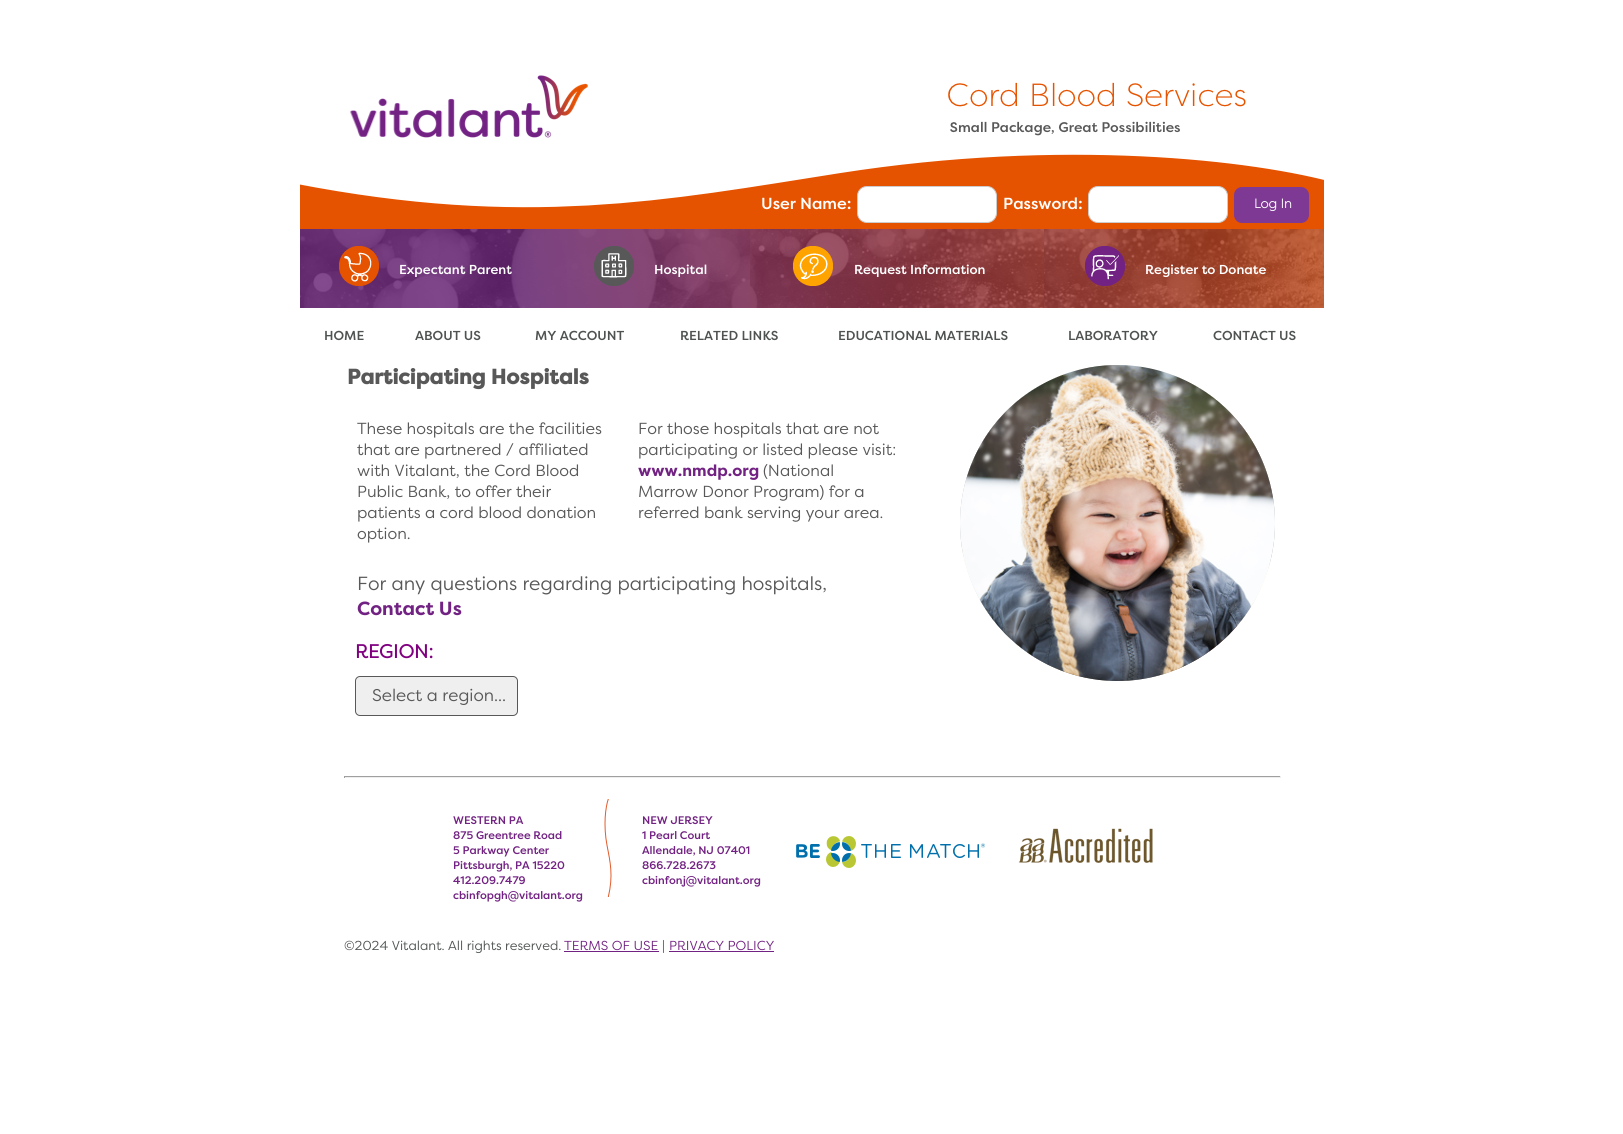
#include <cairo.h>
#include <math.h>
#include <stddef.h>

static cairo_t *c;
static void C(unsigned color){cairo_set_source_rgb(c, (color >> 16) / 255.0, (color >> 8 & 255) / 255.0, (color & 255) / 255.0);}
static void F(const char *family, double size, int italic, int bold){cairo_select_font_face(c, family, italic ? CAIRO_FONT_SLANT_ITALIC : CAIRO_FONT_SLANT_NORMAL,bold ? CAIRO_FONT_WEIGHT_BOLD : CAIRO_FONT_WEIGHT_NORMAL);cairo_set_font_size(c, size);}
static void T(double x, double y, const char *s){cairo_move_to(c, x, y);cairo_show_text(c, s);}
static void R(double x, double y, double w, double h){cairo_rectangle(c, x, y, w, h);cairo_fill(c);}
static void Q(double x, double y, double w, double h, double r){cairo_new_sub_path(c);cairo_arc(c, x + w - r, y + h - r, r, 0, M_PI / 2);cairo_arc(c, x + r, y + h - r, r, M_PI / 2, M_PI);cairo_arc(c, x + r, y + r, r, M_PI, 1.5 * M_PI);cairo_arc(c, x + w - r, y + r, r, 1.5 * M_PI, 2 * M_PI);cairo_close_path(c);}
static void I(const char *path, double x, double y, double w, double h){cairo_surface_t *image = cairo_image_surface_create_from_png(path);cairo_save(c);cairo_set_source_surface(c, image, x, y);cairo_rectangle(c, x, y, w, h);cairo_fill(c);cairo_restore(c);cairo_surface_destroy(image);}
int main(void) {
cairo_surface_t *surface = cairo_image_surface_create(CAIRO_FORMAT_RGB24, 1623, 1134);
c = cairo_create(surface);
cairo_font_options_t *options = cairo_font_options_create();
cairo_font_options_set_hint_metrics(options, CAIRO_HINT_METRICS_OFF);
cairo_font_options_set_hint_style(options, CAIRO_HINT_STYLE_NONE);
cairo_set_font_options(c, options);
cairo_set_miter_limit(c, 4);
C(0xffffff);
cairo_paint(c);
I("1.png",300,75,1024,154);
F("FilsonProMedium",16,0,0);
C(0xffffff);
T(761,209,"User Name:");
Q(857.5,186.5,139,36,9.5);
cairo_fill_preserve(c);
C(0xcccccc);
cairo_set_line_width(c,1);
cairo_stroke(c);
C(0xffffff);
T(1003,209,"Password:");
Q(1088.5,186.5,139,36,9.5);
cairo_fill_preserve(c);
C(0xcccccc);
cairo_stroke(c);
C(0x7e3995);
Q(1234,187,75,36,8);
cairo_fill(c);
F("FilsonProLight",13,0,1);
C(0xffffff);
T(1254,208,"Log In");
I("2.png",300,229,267,79);
I("3.png",339,246,40,40);
F("FilsonProMedium",13,0,0);
T(399,274,"Expectant Parent");
I("4.png",567,229,183,79);
I("5.png",594,246,40,40);
T(654,274,"Hospital");
I("6.png",750,229,294,79);
I("7.png",793,246,40,40);
T(854,274,"Request Information");
I("8.png",1044,229,280,79);
I("9.png",1085,246,40,40);
T(1145,274,"Register to Donate");
C(0x4e5351);
T(324,340,"HOME");
T(415,340,"ABOUT US");
T(535,340,"MY ACCOUNT");
T(680,340,"RELATED LINKS");
T(838,340,"EDUCATIONAL MATERIALS");
T(1068,340,"LABORATORY");
T(1213,340,"CONTACT US");
F("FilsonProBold",21,0,1);
C(0x585858);
T(347,384,"Participating Hospitals");
F("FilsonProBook",16,0,0);
T(357,434,"These hospitals are the facilities");
T(357,455,"that are partnered / affiliated");
T(357,476,"with Vitalant, the Cord Blood");
T(357,497,"Public Bank, to offer their");
T(357,518,"patients a cord blood donation");
T(357,539,"option.");
T(638,434,"For those hospitals that are not");
T(638,455,"participating or listed please visit:");
F("FilsonProBold",16,0,0);
C(0x722282);
T(638,476,"www.nmdp.org");
F("FilsonProBook",16,0,0);
C(0x585858);
T(763,476,"(National");
T(638,497,"Marrow Donor Program) for a");
T(638,518,"referred bank serving your area.");
F("FilsonProBook",19,0,0);
T(357,590,"For any questions regarding participating hospitals,");
F("FilsonProBold",19,0,0);
C(0x722282);
T(357,615,"Contact Us");
F("FilsonProBook",19,0,1);
C(0x800080);
T(355,658,"REGION:");
C(0xefefef);
Q(355.5,676.5,162,39,4.5);
cairo_fill_preserve(c);
C(0x585858);
cairo_stroke(c);
F("FilsonProBook",17,0,0);
T(372,701,"Select a region...");
I("10.png",960,365,315,316);
C(0x9f9f9f);
R(344,776,937,1);
C(0xeeeeee);
R(1280,776,1,2);
R(344,777,937,1);
C(0x9f9f9f);
R(344,776,1,2);
F("FilsonProMedium",11,0,0);
C(0x722282);
T(453,824,"WESTERN PA");
T(453,839,"875 Greentree Road");
T(453,854,"5 Parkway Center");
T(453,869,"Pittsburgh, PA 15220");
T(453,884,"412.209.7479");
T(453,899,"cbinfopgh@vitalant.org");
I("11.png",604,799,8,98);
T(642,824,"NEW JERSEY");
T(642,839,"1 Pearl Court");
T(642,854,"Allendale, NJ 07401");
T(642,869,"866.728.2673");
T(642,884,"cbinfonj@vitalant.org");
I("12.png",796,836,189,32);
I("13.png",1018,828,135,35);
F("FilsonProBook",13,0,0);
C(0x4e5351);
T(344,950,"©2024 Vitalant. All rights reserved.");
C(0x722282);
T(564,950,"TERMS OF USE");
R(564,951,95,1);
C(0x4e5351);
T(662,950,"|");
C(0x722282);
T(669,950,"PRIVACY POLICY");
R(669,951,105,1);
cairo_surface_write_to_png(surface, "o.png");
cairo_font_options_destroy(options);
cairo_destroy(c);
cairo_surface_destroy(surface);
return 0;
}
